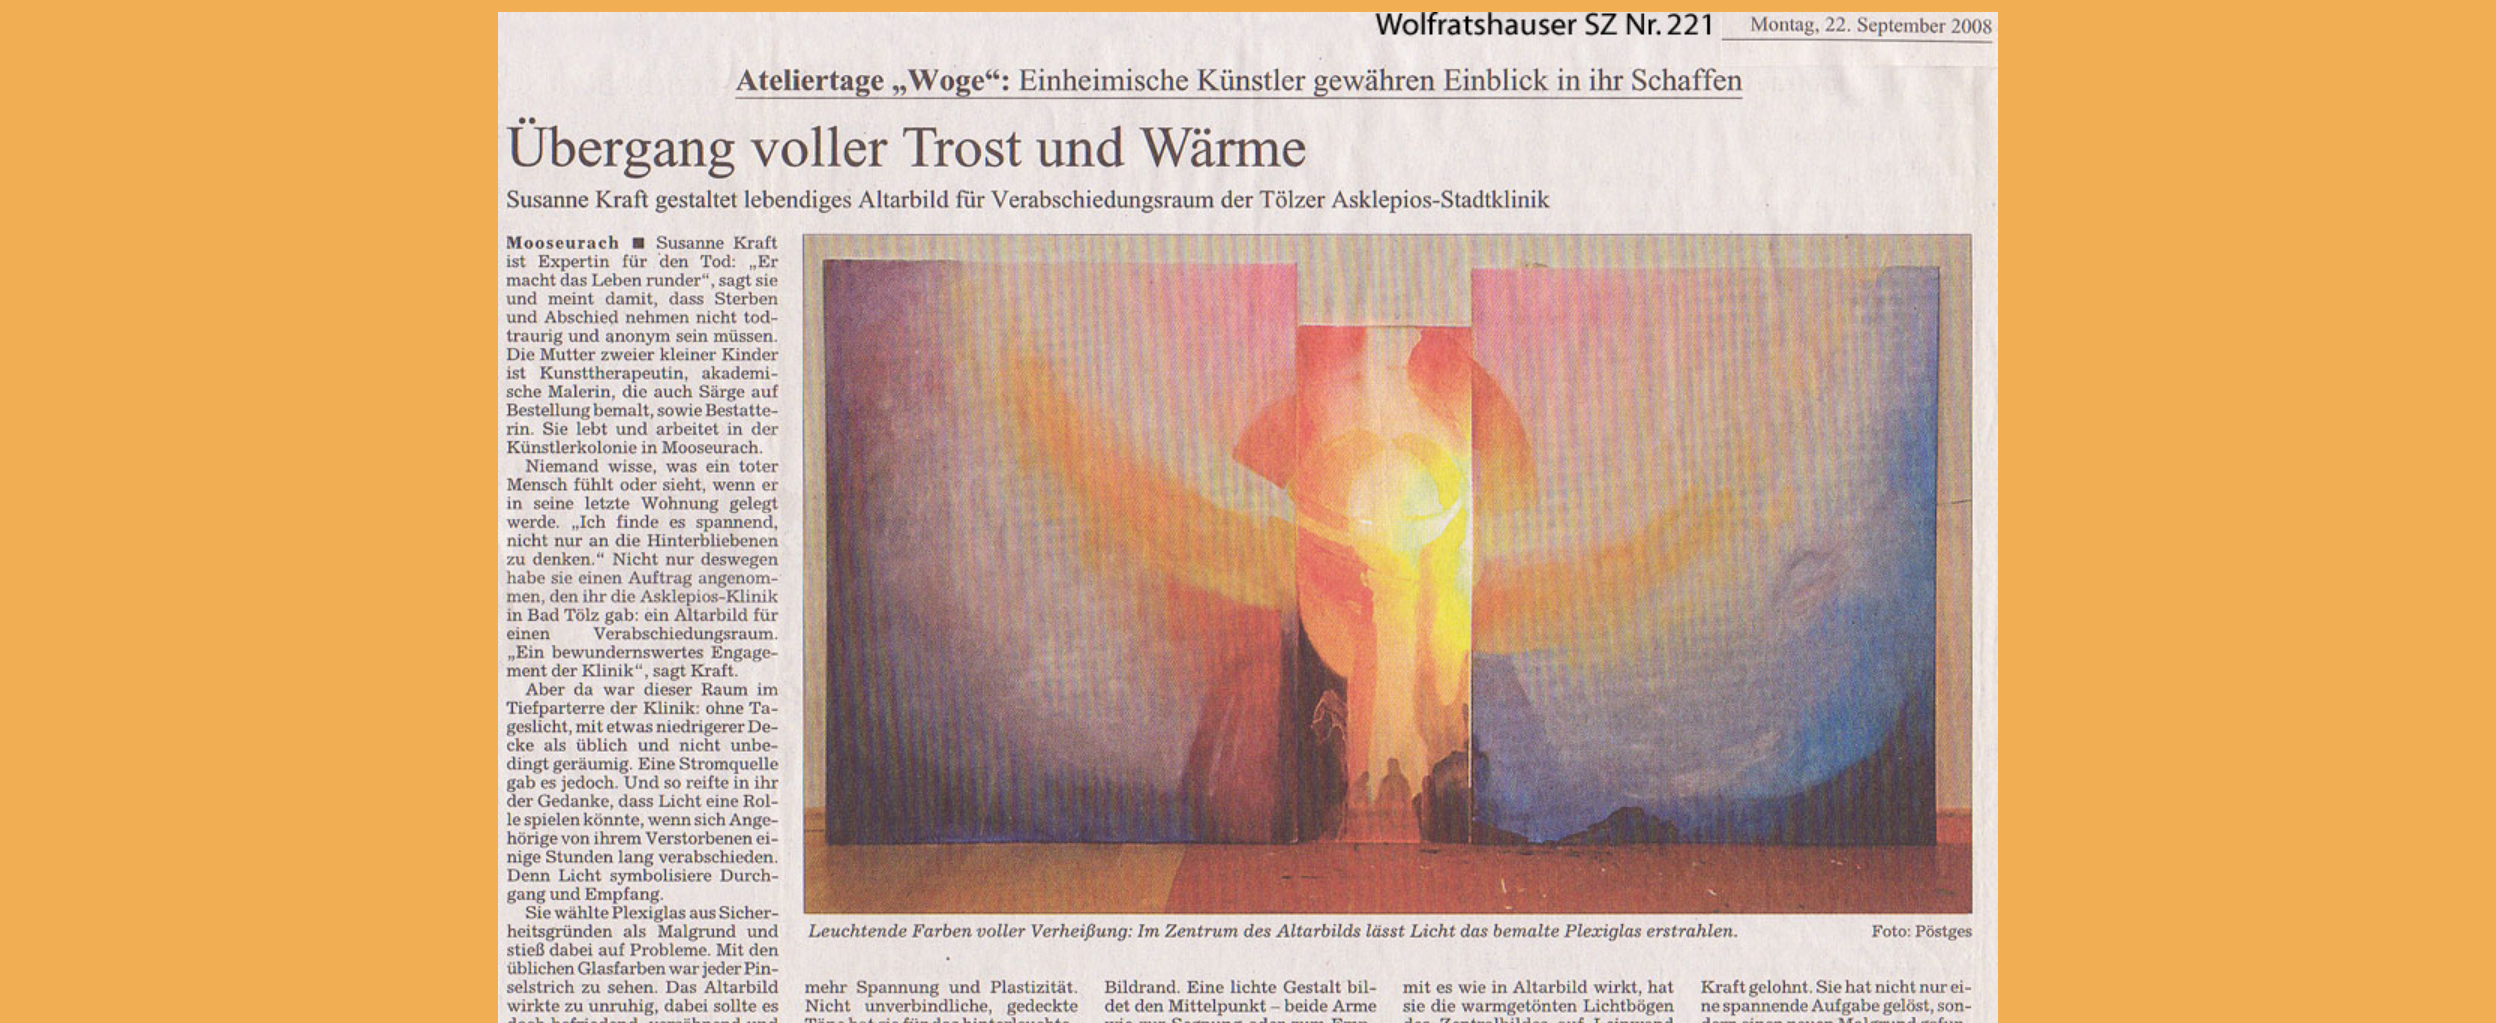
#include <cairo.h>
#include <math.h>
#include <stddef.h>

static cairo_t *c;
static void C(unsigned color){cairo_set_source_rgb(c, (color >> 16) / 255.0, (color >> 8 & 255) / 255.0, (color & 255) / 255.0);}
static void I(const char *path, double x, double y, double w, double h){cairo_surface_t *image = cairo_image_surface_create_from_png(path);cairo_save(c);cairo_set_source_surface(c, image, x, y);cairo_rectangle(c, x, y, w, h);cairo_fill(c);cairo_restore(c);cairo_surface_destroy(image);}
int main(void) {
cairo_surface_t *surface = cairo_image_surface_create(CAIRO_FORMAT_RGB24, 2496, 1023);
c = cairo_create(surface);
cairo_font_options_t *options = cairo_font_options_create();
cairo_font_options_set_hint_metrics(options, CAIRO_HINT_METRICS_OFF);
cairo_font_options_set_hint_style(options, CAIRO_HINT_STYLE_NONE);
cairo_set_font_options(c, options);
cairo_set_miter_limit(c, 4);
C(0xf2ae53);
cairo_paint(c);
I("1.png",498,12,1500,1011);
cairo_surface_write_to_png(surface, "o.png");
cairo_font_options_destroy(options);
cairo_destroy(c);
cairo_surface_destroy(surface);
return 0;
}
